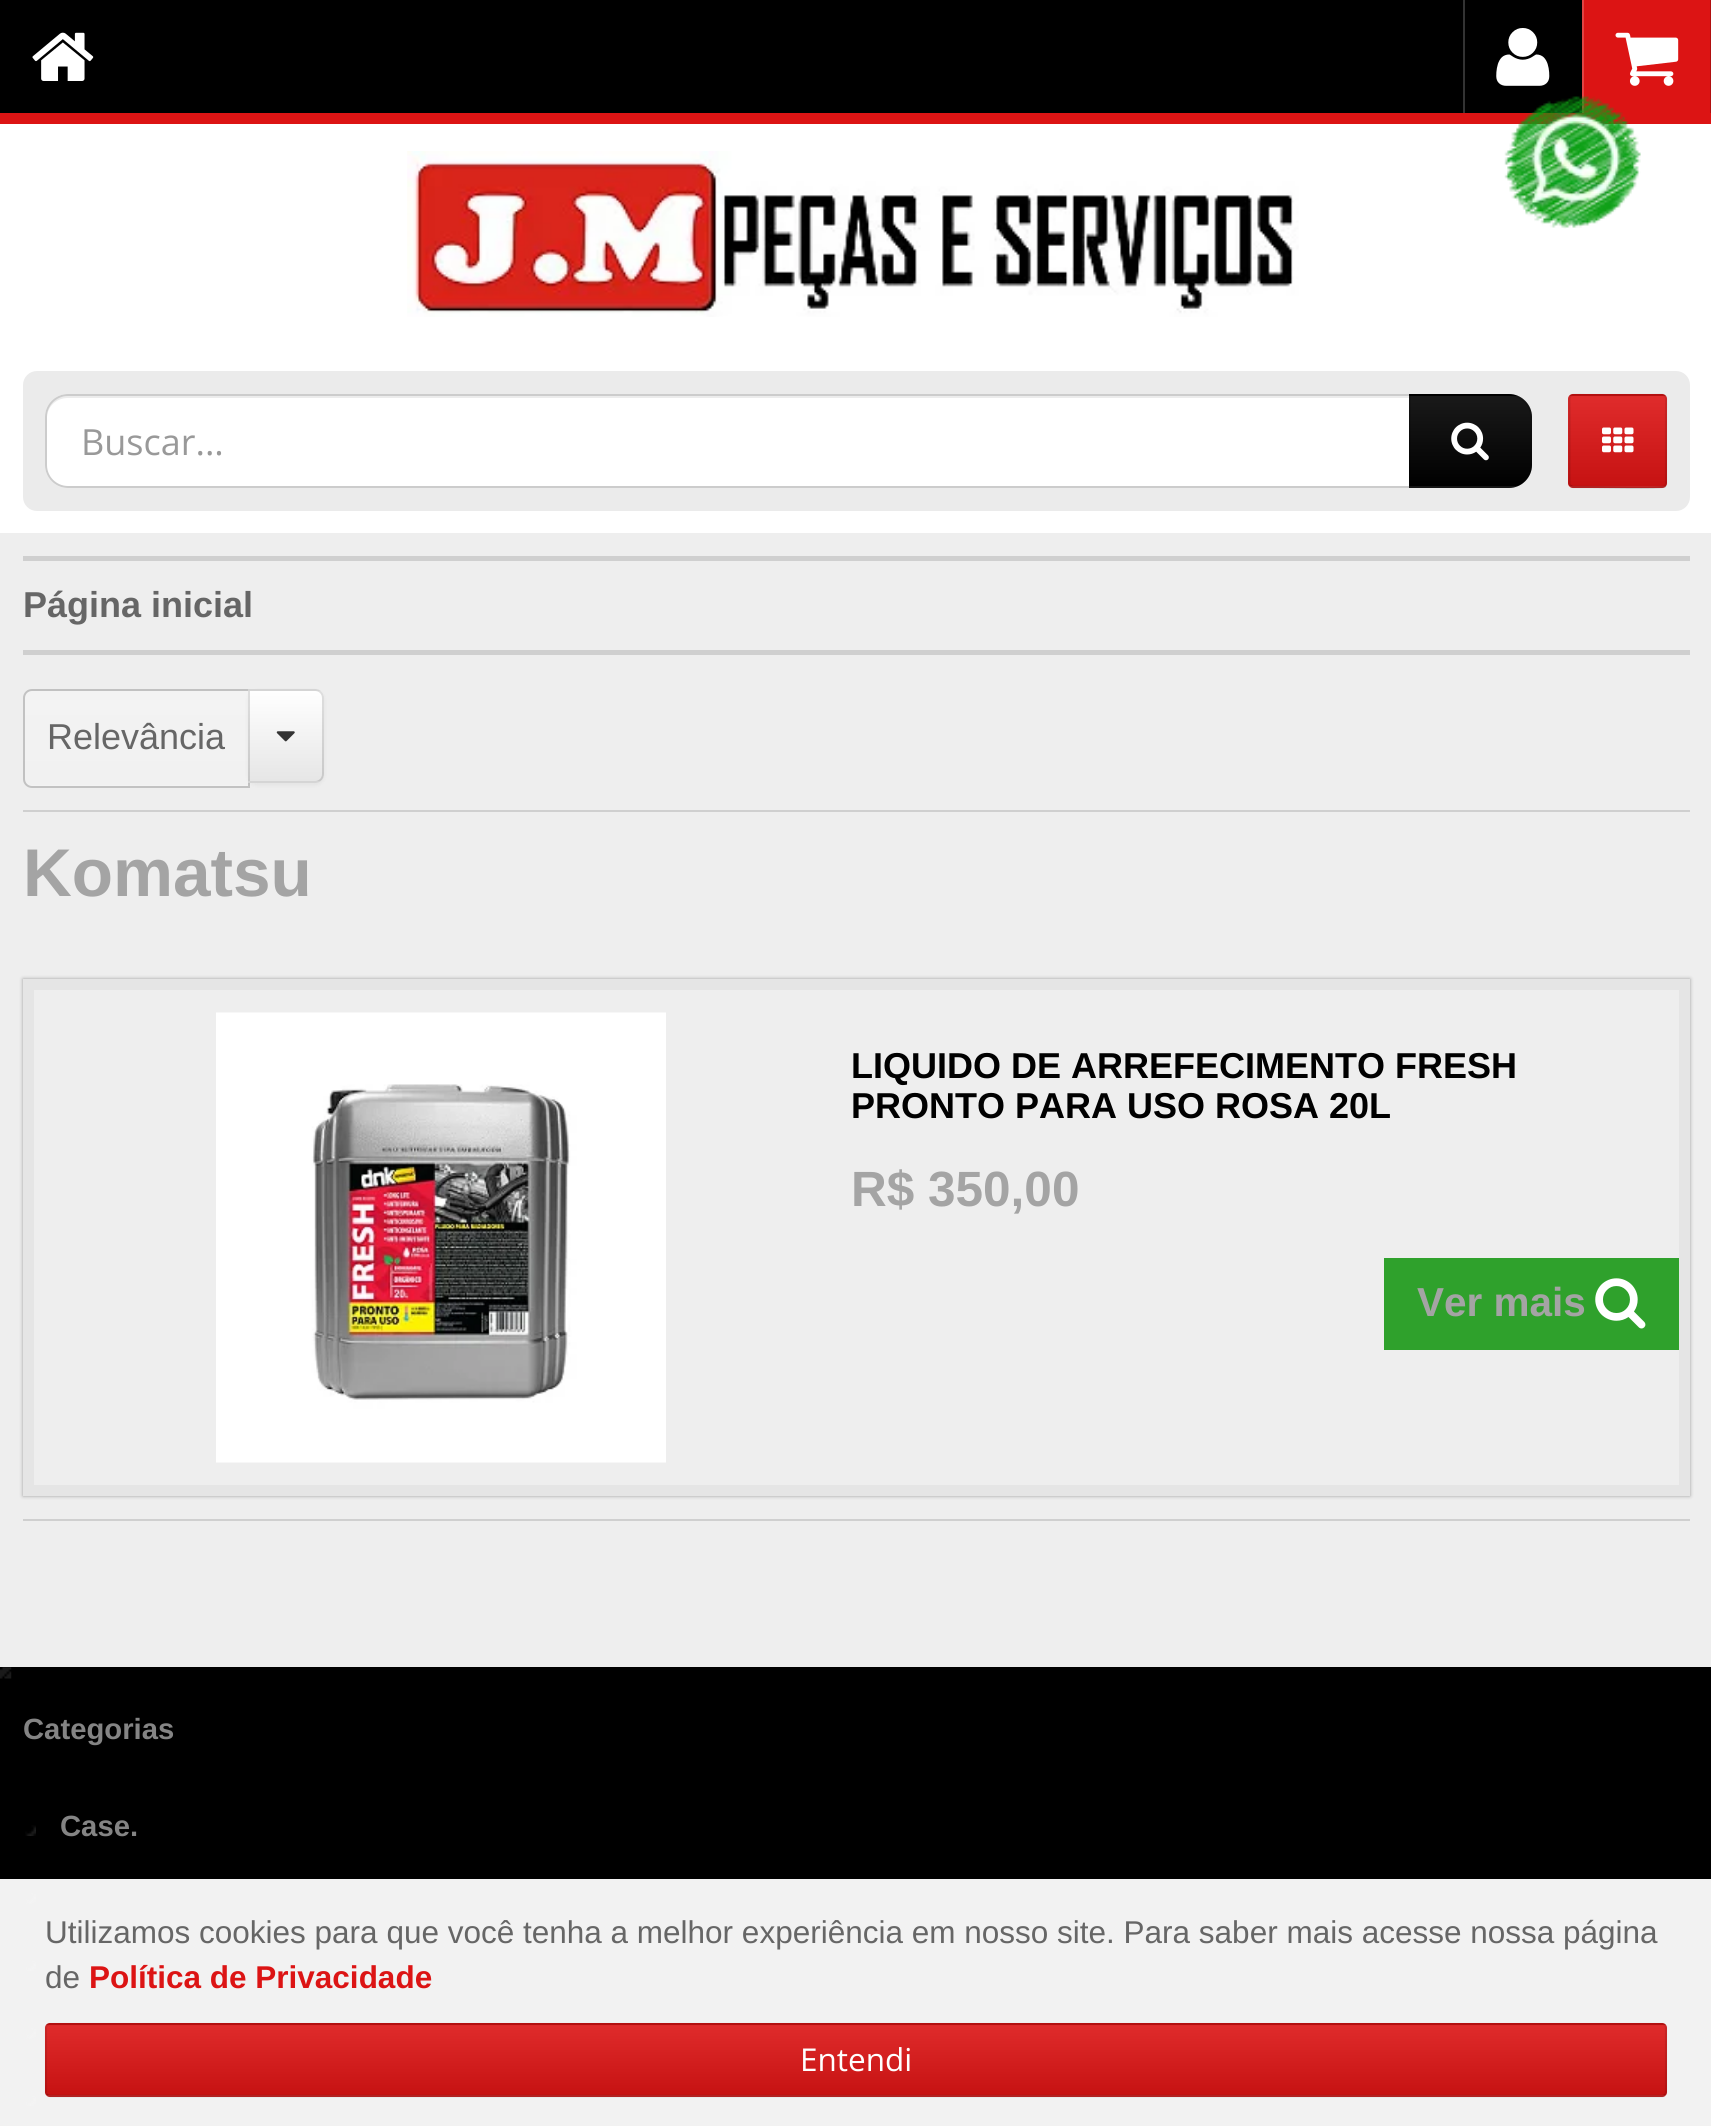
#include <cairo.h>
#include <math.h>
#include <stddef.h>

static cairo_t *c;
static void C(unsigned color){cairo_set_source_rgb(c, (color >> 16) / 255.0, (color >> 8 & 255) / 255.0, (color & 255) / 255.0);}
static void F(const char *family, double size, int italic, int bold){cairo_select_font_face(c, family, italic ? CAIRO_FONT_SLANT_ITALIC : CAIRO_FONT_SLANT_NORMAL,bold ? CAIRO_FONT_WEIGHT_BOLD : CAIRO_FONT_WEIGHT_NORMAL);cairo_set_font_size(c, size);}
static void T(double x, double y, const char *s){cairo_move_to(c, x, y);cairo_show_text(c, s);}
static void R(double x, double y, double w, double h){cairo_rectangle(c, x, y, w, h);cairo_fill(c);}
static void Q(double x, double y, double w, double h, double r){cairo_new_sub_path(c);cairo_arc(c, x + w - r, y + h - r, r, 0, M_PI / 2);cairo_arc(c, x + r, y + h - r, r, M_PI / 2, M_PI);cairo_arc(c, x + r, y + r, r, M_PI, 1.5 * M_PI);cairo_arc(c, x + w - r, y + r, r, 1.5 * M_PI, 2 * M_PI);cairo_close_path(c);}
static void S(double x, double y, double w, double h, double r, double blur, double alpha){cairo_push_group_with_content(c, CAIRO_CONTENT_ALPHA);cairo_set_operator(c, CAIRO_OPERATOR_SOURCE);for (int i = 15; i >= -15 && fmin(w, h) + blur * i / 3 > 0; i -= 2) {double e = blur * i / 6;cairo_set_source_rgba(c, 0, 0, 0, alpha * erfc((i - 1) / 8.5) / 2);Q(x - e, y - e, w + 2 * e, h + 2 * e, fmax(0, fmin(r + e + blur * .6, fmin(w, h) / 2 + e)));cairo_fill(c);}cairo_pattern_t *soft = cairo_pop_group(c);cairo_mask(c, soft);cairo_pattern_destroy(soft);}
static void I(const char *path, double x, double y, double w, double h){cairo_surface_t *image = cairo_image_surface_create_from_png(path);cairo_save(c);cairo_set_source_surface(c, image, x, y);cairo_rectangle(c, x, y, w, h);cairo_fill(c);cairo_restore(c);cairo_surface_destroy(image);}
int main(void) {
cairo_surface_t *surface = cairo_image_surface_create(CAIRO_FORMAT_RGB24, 1711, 2126);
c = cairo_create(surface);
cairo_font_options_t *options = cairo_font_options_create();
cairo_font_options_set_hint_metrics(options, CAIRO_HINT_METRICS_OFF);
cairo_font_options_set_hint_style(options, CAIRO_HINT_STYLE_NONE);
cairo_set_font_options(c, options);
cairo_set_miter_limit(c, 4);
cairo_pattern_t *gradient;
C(0xeeeeee);
cairo_paint(c);
C(0xffffff);
R(0,124,1711,409);
C(0x000000);
R(0,0,1582,113);
C(0xdc1414);
R(0,113,1711,11);
R(1584,0,126,113);
C(0xe34343);
R(1582,0,2,113);
I("1.png",1504,95,137,134);
I("2.png",32,32,62,49);
C(0x333333);
R(1463,0,2,113);
I("3.png",1496,28,54,58);
C(0xb01010);
R(1710,0,1,113);
I("4.png",1615,32,64,54);
I("5.png",407,151,892,166);
C(0xebebeb);
Q(23,371,1667,140,14);
cairo_fill(c);
C(0xffffff);
Q(45,394,1404,94,23);
cairo_fill(c);
C(0xececec);
cairo_new_path(c);
cairo_move_to(c,68,398);
cairo_line_to(c,1426,398);
cairo_curve_to(c,1438,398,1447,407,1447,418);
cairo_curve_to(c,1447,406,1440,396,1427,396);
cairo_line_to(c,67,396);
cairo_curve_to(c,54,396,47,406,47,418);
cairo_curve_to(c,47,407,56,398,68,398);
cairo_close_path(c);
cairo_fill(c);
Q(46,395,1402,92,22);
C(0xcccccc);
cairo_stroke(c);
F("Open Sans",36,0,0);
C(0x999999);
T(81,455,"Buscar...");
C(0x000000);
cairo_new_path(c);
cairo_move_to(c,1409,394);
cairo_line_to(c,1509,394);
cairo_curve_to(c,1521.5,394,1532,404.5,1532,417);
cairo_line_to(c,1532,465);
cairo_curve_to(c,1532,477.5,1521.5,488,1509,488);
cairo_line_to(c,1409,488);
cairo_close_path(c);
cairo_fill(c);
cairo_save(c);
cairo_new_path(c);
cairo_move_to(c,1409,394);
cairo_line_to(c,1509,394);
cairo_curve_to(c,1521.5,394,1532,404.5,1532,417);
cairo_line_to(c,1532,465);
cairo_curve_to(c,1532,477.5,1521.5,488,1509,488);
cairo_line_to(c,1409,488);
cairo_close_path(c);
cairo_clip(c);
gradient = cairo_pattern_create_linear(1470,306,1470,396);
cairo_pattern_add_color_stop_rgba(gradient,0,1,1,1,.1);
cairo_pattern_add_color_stop_rgba(gradient,1,0,0,0,.1);
cairo_set_source(c,gradient);
cairo_pattern_destroy(gradient);
R(1409,394,109,2);
gradient = cairo_pattern_create_linear(1470,396,1470,486);
cairo_pattern_add_color_stop_rgba(gradient,0,1,1,1,.1);
cairo_pattern_add_color_stop_rgba(gradient,1,0,0,0,.1);
cairo_set_source(c,gradient);
cairo_pattern_destroy(gradient);
R(1409,396,123,90);
gradient = cairo_pattern_create_linear(1470,486,1470,576);
cairo_pattern_add_color_stop_rgba(gradient,0,1,1,1,.1);
cairo_pattern_add_color_stop_rgba(gradient,1,0,0,0,.1);
cairo_set_source(c,gradient);
cairo_pattern_destroy(gradient);
R(1409,486,109,2);
cairo_restore(c);
cairo_new_path(c);
cairo_move_to(c,1410,395);
cairo_line_to(c,1509,395);
cairo_curve_to(c,1521,395,1531,405,1531,417);
cairo_line_to(c,1531,465);
cairo_curve_to(c,1531,477,1521,487,1509,487);
cairo_line_to(c,1410,487);
cairo_close_path(c);
cairo_set_source_rgba(c,0,0,0,0.13);
cairo_stroke(c);
I("6.png",1451,422,38,39);
C(0xdc1414);
Q(1568,394,99,94,5);
cairo_fill(c);
cairo_save(c);
Q(1568,394,99,94,5);
cairo_clip(c);
gradient = cairo_pattern_create_linear(1618,306,1618,396);
cairo_pattern_add_color_stop_rgba(gradient,0,1,1,1,.1);
cairo_pattern_add_color_stop_rgba(gradient,1,0,0,0,.1);
cairo_set_source(c,gradient);
cairo_pattern_destroy(gradient);
R(1568,394,99,2);
gradient = cairo_pattern_create_linear(1618,396,1618,486);
cairo_pattern_add_color_stop_rgba(gradient,0,1,1,1,.1);
cairo_pattern_add_color_stop_rgba(gradient,1,0,0,0,.1);
cairo_set_source(c,gradient);
cairo_pattern_destroy(gradient);
R(1568,396,99,90);
gradient = cairo_pattern_create_linear(1618,486,1618,576);
cairo_pattern_add_color_stop_rgba(gradient,0,1,1,1,.1);
cairo_pattern_add_color_stop_rgba(gradient,1,0,0,0,.1);
cairo_set_source(c,gradient);
cairo_pattern_destroy(gradient);
R(1568,486,99,2);
cairo_restore(c);
cairo_new_path(c);
cairo_move_to(c,1665,486);
cairo_line_to(c,1665,486.5);
cairo_curve_to(c,1662.5,488.5,1596,487,1588,487);
cairo_line_to(c,1573,487);
cairo_line_to(c,1570.5,486);
cairo_set_source_rgba(c,0,0,0,0.2);
cairo_set_line_width(c,2.2);
cairo_stroke(c);
cairo_new_path(c);
cairo_move_to(c,1570.5,486);
cairo_line_to(c,1569.5,484);
cairo_line_to(c,1569.5,412.5);
cairo_curve_to(c,1569.5,391.5,1566,395,1588,395);
cairo_line_to(c,1648,395);
cairo_curve_to(c,1669.5,395,1666,391.5,1666,412.5);
cairo_line_to(c,1666,484);
cairo_line_to(c,1665,486);
cairo_set_source_rgba(c,0,0,0,0.1);
cairo_stroke(c);
I("7.png",1602,427,32,26);
C(0xcfcfcf);
R(23,556,1667,5);
R(23,650,1667,5);
F("Liberation Sans",36,0,1);
C(0x666666);
T(23,617,"Página inicial");
C(0xcfcfcf);
R(23,810,1667,2);
cairo_save(c);
cairo_new_path(c);
cairo_move_to(c,32,689);
cairo_line_to(c,250,689);
cairo_line_to(c,250,788);
cairo_line_to(c,32,788);
cairo_curve_to(c,27,788,23,784,23,779);
cairo_line_to(c,23,698);
cairo_curve_to(c,23,693,27,689,32,689);
cairo_close_path(c);
cairo_clip(c);
gradient = cairo_pattern_create_linear(136,596,136,691);
cairo_pattern_add_color_stop_rgba(gradient,0,0.953,0.953,0.953,1);
cairo_pattern_add_color_stop_rgba(gradient,1,0.945,0.945,0.945,1);
cairo_set_source(c,gradient);
cairo_pattern_destroy(gradient);
R(23,689,227,2);
gradient = cairo_pattern_create_linear(136,691,136,785);
cairo_pattern_add_color_stop_rgba(gradient,0,0.953,0.953,0.953,1);
cairo_pattern_add_color_stop_rgba(gradient,1,0.945,0.945,0.945,1);
cairo_set_source(c,gradient);
cairo_pattern_destroy(gradient);
R(23,691,227,94);
gradient = cairo_pattern_create_linear(136,785,136,880);
cairo_pattern_add_color_stop_rgba(gradient,0,0.953,0.953,0.953,1);
cairo_pattern_add_color_stop_rgba(gradient,1,0.945,0.945,0.945,1);
cairo_set_source(c,gradient);
cairo_pattern_destroy(gradient);
R(23,785,227,3);
cairo_restore(c);
cairo_new_path(c);
cairo_move_to(c,32,690);
cairo_line_to(c,249,690);
cairo_line_to(c,249,787);
cairo_line_to(c,32,787);
cairo_curve_to(c,27.5,787,24,783.5,24,779);
cairo_line_to(c,24,698);
cairo_curve_to(c,24,693.5,27.5,690,32,690);
cairo_close_path(c);
cairo_set_source_rgba(c,0,0,0,0.2);
cairo_set_line_width(c,2);
cairo_stroke(c);
F("Liberation Sans",36,0,0);
C(0x666666);
T(47,749,"Relevância");
C(0x000000);
S(248,691,76,94,9,2,.05);
C(0xf5f5f5);
cairo_new_path(c);
cairo_move_to(c,248,689);
cairo_line_to(c,315,689);
cairo_curve_to(c,320,689,324,693,324,698);
cairo_line_to(c,324,774);
cairo_curve_to(c,324,779,320,783,315,783);
cairo_line_to(c,248,783);
cairo_close_path(c);
cairo_fill(c);
cairo_save(c);
cairo_new_path(c);
cairo_move_to(c,248,689);
cairo_line_to(c,315,689);
cairo_curve_to(c,320,689,324,693,324,698);
cairo_line_to(c,324,774);
cairo_curve_to(c,324,779,320,783,315,783);
cairo_line_to(c,248,783);
cairo_close_path(c);
cairo_clip(c);
gradient = cairo_pattern_create_linear(286,691,286,781);
cairo_pattern_add_color_stop_rgba(gradient,0,1,1,1,1);
cairo_pattern_add_color_stop_rgba(gradient,1,0.902,0.902,0.902,1);
cairo_set_source(c,gradient);
cairo_pattern_destroy(gradient);
R(248,691,76,90);
cairo_restore(c);
cairo_new_path(c);
cairo_move_to(c,249,690);
cairo_line_to(c,315,690);
cairo_curve_to(c,319.5,690,323,693.5,323,698);
cairo_line_to(c,323,774);
cairo_curve_to(c,323,778.5,319.5,782,315,782);
cairo_line_to(c,249,782);
cairo_close_path(c);
cairo_set_source_rgba(c,0,0,0,0.13);
cairo_stroke(c);
I("8.png",276,731,19,11);
F("Liberation Sans",67.5,0,1);
C(0xa4a4a4);
T(23,896,"Komatsu");
cairo_save(c);
cairo_set_fill_rule(c,CAIRO_FILL_RULE_EVEN_ODD);
cairo_new_path(c);
cairo_move_to(c,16,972);
cairo_line_to(c,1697,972);
cairo_line_to(c,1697,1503);
cairo_line_to(c,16,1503);
cairo_close_path(c);
cairo_move_to(c,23,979);
cairo_line_to(c,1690,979);
cairo_line_to(c,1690,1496);
cairo_line_to(c,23,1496);
cairo_close_path(c);
cairo_clip(c);
C(0x000000);
S(23,979,1667,517,0,2,.33);
cairo_restore(c);
cairo_rectangle(c,28.5,984.5,1656,506);
cairo_set_source_rgba(c,0,0,0,0.04);
cairo_set_line_width(c,11);
cairo_stroke(c);
I("9.png",216,1012,450,451);
F("Liberation Sans",36,0,1);
C(0x000000);
T(851,1078,"LIQUIDO DE ARREFECIMENTO FRESH");
T(851,1118,"PRONTO PARA USO ROSA 20L");
F("Liberation Sans",49.5,0,1);
C(0xa4a4a4);
T(851,1206,"R$ 350,00");
C(0x2fa12c);
R(1384,1258,295,92);
F("Liberation Sans",40.5,0,1);
C(0xa4a4a4);
T(1417,1316,"Ver mais");
I("10.png",1595,1278,51,51);
C(0xcfcfcf);
R(23,1519,1667,2);
C(0x000000);
R(0,1667,1711,212);
C(0xf2f2f2);
R(0,1879,1711,247);
I("11.png",0,1667,12,12);
F("Liberation Sans",29.25,0,1);
C(0x848484);
T(23,1739,"Categorias");
I("12.png",25,1825,11,11);
T(60,1836,"Case.");
I("13.png",26,1893,10,11);
I("14.png",25,1960,11,11);
I("13.png",26,2028,10,11);
I("14.png",25,2095,11,11);
F("Liberation Sans",31.5,0,0);
C(0x666666);
T(45,1943,"Utilizamos cookies para que você tenha a melhor experiência em nosso site. Para saber mais acesse nossa página");
T(45,1988,"de");
F("Liberation Sans",31.5,0,1);
C(0xdc1414);
T(89,1988,"Política de Privacidade");
Q(45,2023,1622,74,5);
cairo_fill(c);
cairo_save(c);
Q(45,2023,1622,74,5);
cairo_clip(c);
gradient = cairo_pattern_create_linear(856,1955,856,2025);
cairo_pattern_add_color_stop_rgba(gradient,0,1,1,1,.1);
cairo_pattern_add_color_stop_rgba(gradient,1,0,0,0,.1);
cairo_set_source(c,gradient);
cairo_pattern_destroy(gradient);
R(45,2023,1622,2);
gradient = cairo_pattern_create_linear(856,2025,856,2095);
cairo_pattern_add_color_stop_rgba(gradient,0,1,1,1,.1);
cairo_pattern_add_color_stop_rgba(gradient,1,0,0,0,.1);
cairo_set_source(c,gradient);
cairo_pattern_destroy(gradient);
R(45,2025,1622,70);
gradient = cairo_pattern_create_linear(856,2095,856,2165);
cairo_pattern_add_color_stop_rgba(gradient,0,1,1,1,.1);
cairo_pattern_add_color_stop_rgba(gradient,1,0,0,0,.1);
cairo_set_source(c,gradient);
cairo_pattern_destroy(gradient);
R(45,2095,1622,2);
cairo_restore(c);
cairo_new_path(c);
cairo_move_to(c,1665,2095);
cairo_line_to(c,1663,2096);
cairo_line_to(c,49.5,2096);
cairo_line_to(c,47,2095);
cairo_set_source_rgba(c,0,0,0,0.2);
cairo_set_line_width(c,2.2);
cairo_stroke(c);
cairo_new_path(c);
cairo_move_to(c,47,2095);
cairo_line_to(c,46,2092.5);
cairo_line_to(c,46,2027);
cairo_line_to(c,47,2025);
cairo_line_to(c,49.5,2024);
cairo_line_to(c,1663,2024);
cairo_line_to(c,1665,2025);
cairo_line_to(c,1666,2027);
cairo_line_to(c,1666,2092.5);
cairo_line_to(c,1665,2095);
cairo_set_source_rgba(c,0,0,0,0.1);
cairo_stroke(c);
F("Open Sans",31.5,0,0);
C(0xffffff);
T(800,2071,"Entendi");
cairo_surface_write_to_png(surface, "o.png");
cairo_font_options_destroy(options);
cairo_destroy(c);
cairo_surface_destroy(surface);
return 0;
}
